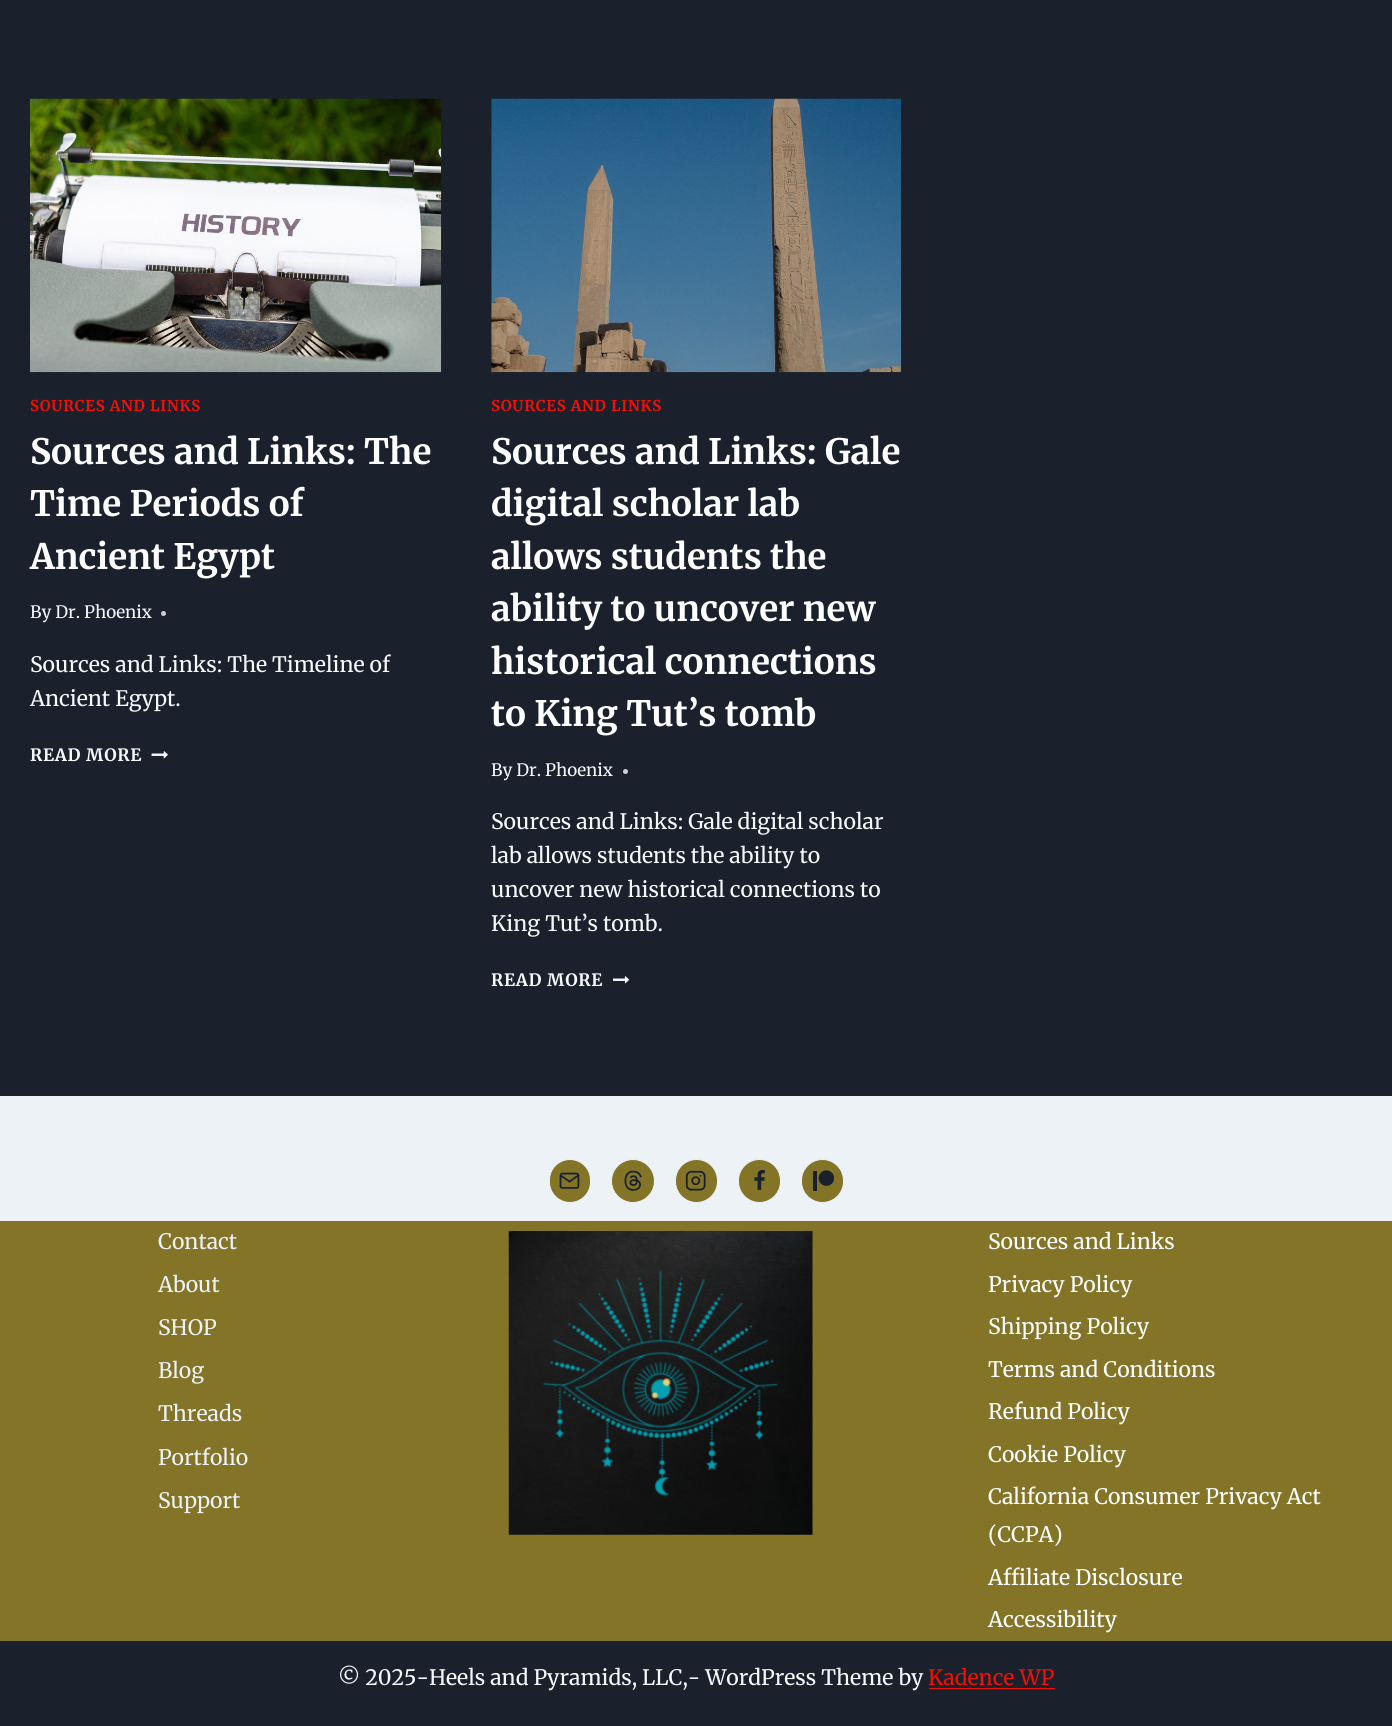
#include <cairo.h>
#include <math.h>
#include <stddef.h>

static cairo_t *c;
static void C(unsigned color){cairo_set_source_rgb(c, (color >> 16) / 255.0, (color >> 8 & 255) / 255.0, (color & 255) / 255.0);}
static void F(const char *family, double size, int italic, int bold){cairo_select_font_face(c, family, italic ? CAIRO_FONT_SLANT_ITALIC : CAIRO_FONT_SLANT_NORMAL,bold ? CAIRO_FONT_WEIGHT_BOLD : CAIRO_FONT_WEIGHT_NORMAL);cairo_set_font_size(c, size);}
static void T(double x, double y, const char *s){cairo_move_to(c, x, y);cairo_show_text(c, s);}
static void L(double x, double y, const char *s, double letter, double word){cairo_move_to(c, x, y);while (*s) {char ch[5] = {0};int n = 0;do ch[n++] = *s++; while ((*s & 0xC0) == 0x80);cairo_show_text(c, ch);cairo_rel_move_to(c, letter + word * (*ch == ' '), 0);}}
static void R(double x, double y, double w, double h){cairo_rectangle(c, x, y, w, h);cairo_fill(c);}
static void Q(double x, double y, double w, double h, double r){cairo_new_sub_path(c);cairo_arc(c, x + w - r, y + h - r, r, 0, M_PI / 2);cairo_arc(c, x + r, y + h - r, r, M_PI / 2, M_PI);cairo_arc(c, x + r, y + r, r, M_PI, 1.5 * M_PI);cairo_arc(c, x + w - r, y + r, r, 1.5 * M_PI, 2 * M_PI);cairo_close_path(c);}
static void I(const char *path, double x, double y, double w, double h){cairo_surface_t *image = cairo_image_surface_create_from_png(path);cairo_save(c);cairo_set_source_surface(c, image, x, y);cairo_rectangle(c, x, y, w, h);cairo_fill(c);cairo_restore(c);cairo_surface_destroy(image);}
int main(void) {
cairo_surface_t *surface = cairo_image_surface_create(CAIRO_FORMAT_RGB24, 1392, 1726);
c = cairo_create(surface);
cairo_font_options_t *options = cairo_font_options_create();
cairo_font_options_set_hint_metrics(options, CAIRO_HINT_METRICS_OFF);
cairo_font_options_set_hint_style(options, CAIRO_HINT_STYLE_NONE);
cairo_set_font_options(c, options);
cairo_set_miter_limit(c, 4);
C(0x1a202c);
cairo_paint(c);
I("1.png",30,98,412,275);
F("Merriweather",14.9,0,1);
C(0xee1106);
L(30,411,"SOURCES AND LINKS",.75,0);
F("Merriweather",35,0,1);
C(0xffffff);
T(30,464,"Sources and Links: The");
T(30,516,"Time Periods of");
T(30,569,"Ancient Egypt");
F("Merriweather",17,0,0);
C(0xf7fafc);
T(30,618,"By Dr. Phoenix");
C(0xcbced2);
cairo_new_path(c);
cairo_arc(c,163.5,613.5,2.5,0,2 * M_PI);
cairo_fill(c);
F("Merriweather",21.25,0,0);
C(0xf7fafc);
T(30,672,"Sources and Links: The Timeline of");
T(30,706,"Ancient Egypt.");
F("Merriweather",17,0,1);
L(30,761,"READ MORE",.75,0);
I("2.png",151,751,17,8);
I("3.png",491,98,411,275);
F("Merriweather",14.9,0,1);
C(0xee1106);
L(491,411,"SOURCES AND LINKS",.75,0);
F("Merriweather",35,0,1);
C(0xffffff);
T(491,464,"Sources and Links: Gale");
T(491,516,"digital scholar lab");
T(491,569,"allows students the");
T(491,621,"ability to uncover new");
T(491,674,"historical connections");
T(491,726,"to King Tut’s tomb");
F("Merriweather",17,0,0);
C(0xf7fafc);
T(491,776,"By Dr. Phoenix");
C(0xcbced2);
cairo_new_path(c);
cairo_arc(c,625.5,771.5,2.5,0,2 * M_PI);
cairo_fill(c);
F("Merriweather",21.25,0,0);
C(0xf7fafc);
T(491,829,"Sources and Links: Gale digital scholar");
T(491,863,"lab allows students the ability to");
T(491,897,"uncover new historical connections to");
T(491,931,"King Tut’s tomb.");
F("Merriweather",17,0,1);
L(491,986,"READ MORE",.75,0);
I("4.png",613,976,16,8);
C(0x837427);
R(0,1221,1392,420);
C(0xedf2f7);
R(0,1096,1392,125);
C(0x837427);
Q(549.5,1159.5,41,43,20.5);
cairo_fill_preserve(c);
C(0xedf2f7);
cairo_set_line_width(c,1);
cairo_stroke(c);
I("5.png",559,1172,21,17);
C(0x837427);
cairo_arc(c,633,1181,21.5,0,2 * M_PI);
cairo_fill_preserve(c);
C(0xedf2f7);
cairo_stroke(c);
I("6.png",624,1170,18,21);
C(0x837427);
Q(675.5,1159.5,42,43,21);
cairo_fill_preserve(c);
C(0xedf2f7);
cairo_stroke(c);
I("7.png",685,1170,21,21);
C(0x837427);
Q(738.5,1159.5,42,43,21);
cairo_fill_preserve(c);
C(0xedf2f7);
cairo_stroke(c);
I("8.png",754,1170,11,20);
C(0x837427);
Q(801.5,1159.5,42,43,21);
cairo_fill_preserve(c);
C(0xedf2f7);
cairo_stroke(c);
I("9.png",813,1170,21,21);
F("Merriweather",21.25,0,0);
T(158,1249,"Contact");
T(158,1292,"About");
T(158,1335,"SHOP");
T(158,1378,"Blog");
T(158,1421,"Threads");
T(158,1465,"Portfolio");
T(158,1508,"Support");
I("10.png",508,1231,305,304);
C(0xffffff);
T(988,1249,"Sources and Links");
T(988,1292,"Privacy Policy");
T(988,1334,"Shipping Policy");
T(988,1377,"Terms and Conditions");
T(988,1419,"Refund Policy");
T(988,1462,"Cookie Policy");
T(988,1504,"California Consumer Privacy Act");
T(988,1542,"(CCPA)");
T(988,1585,"Affiliate Disclosure");
T(988,1627,"Accessibility");
C(0xf7fafc);
T(338,1685,"© 2025-Heels and Pyramids, LLC,- WordPress Theme by");
C(0xee1106);
T(928,1685,"Kadence WP");
R(929,1688,126,1);
cairo_surface_write_to_png(surface, "o.png");
cairo_font_options_destroy(options);
cairo_destroy(c);
cairo_surface_destroy(surface);
return 0;
}
